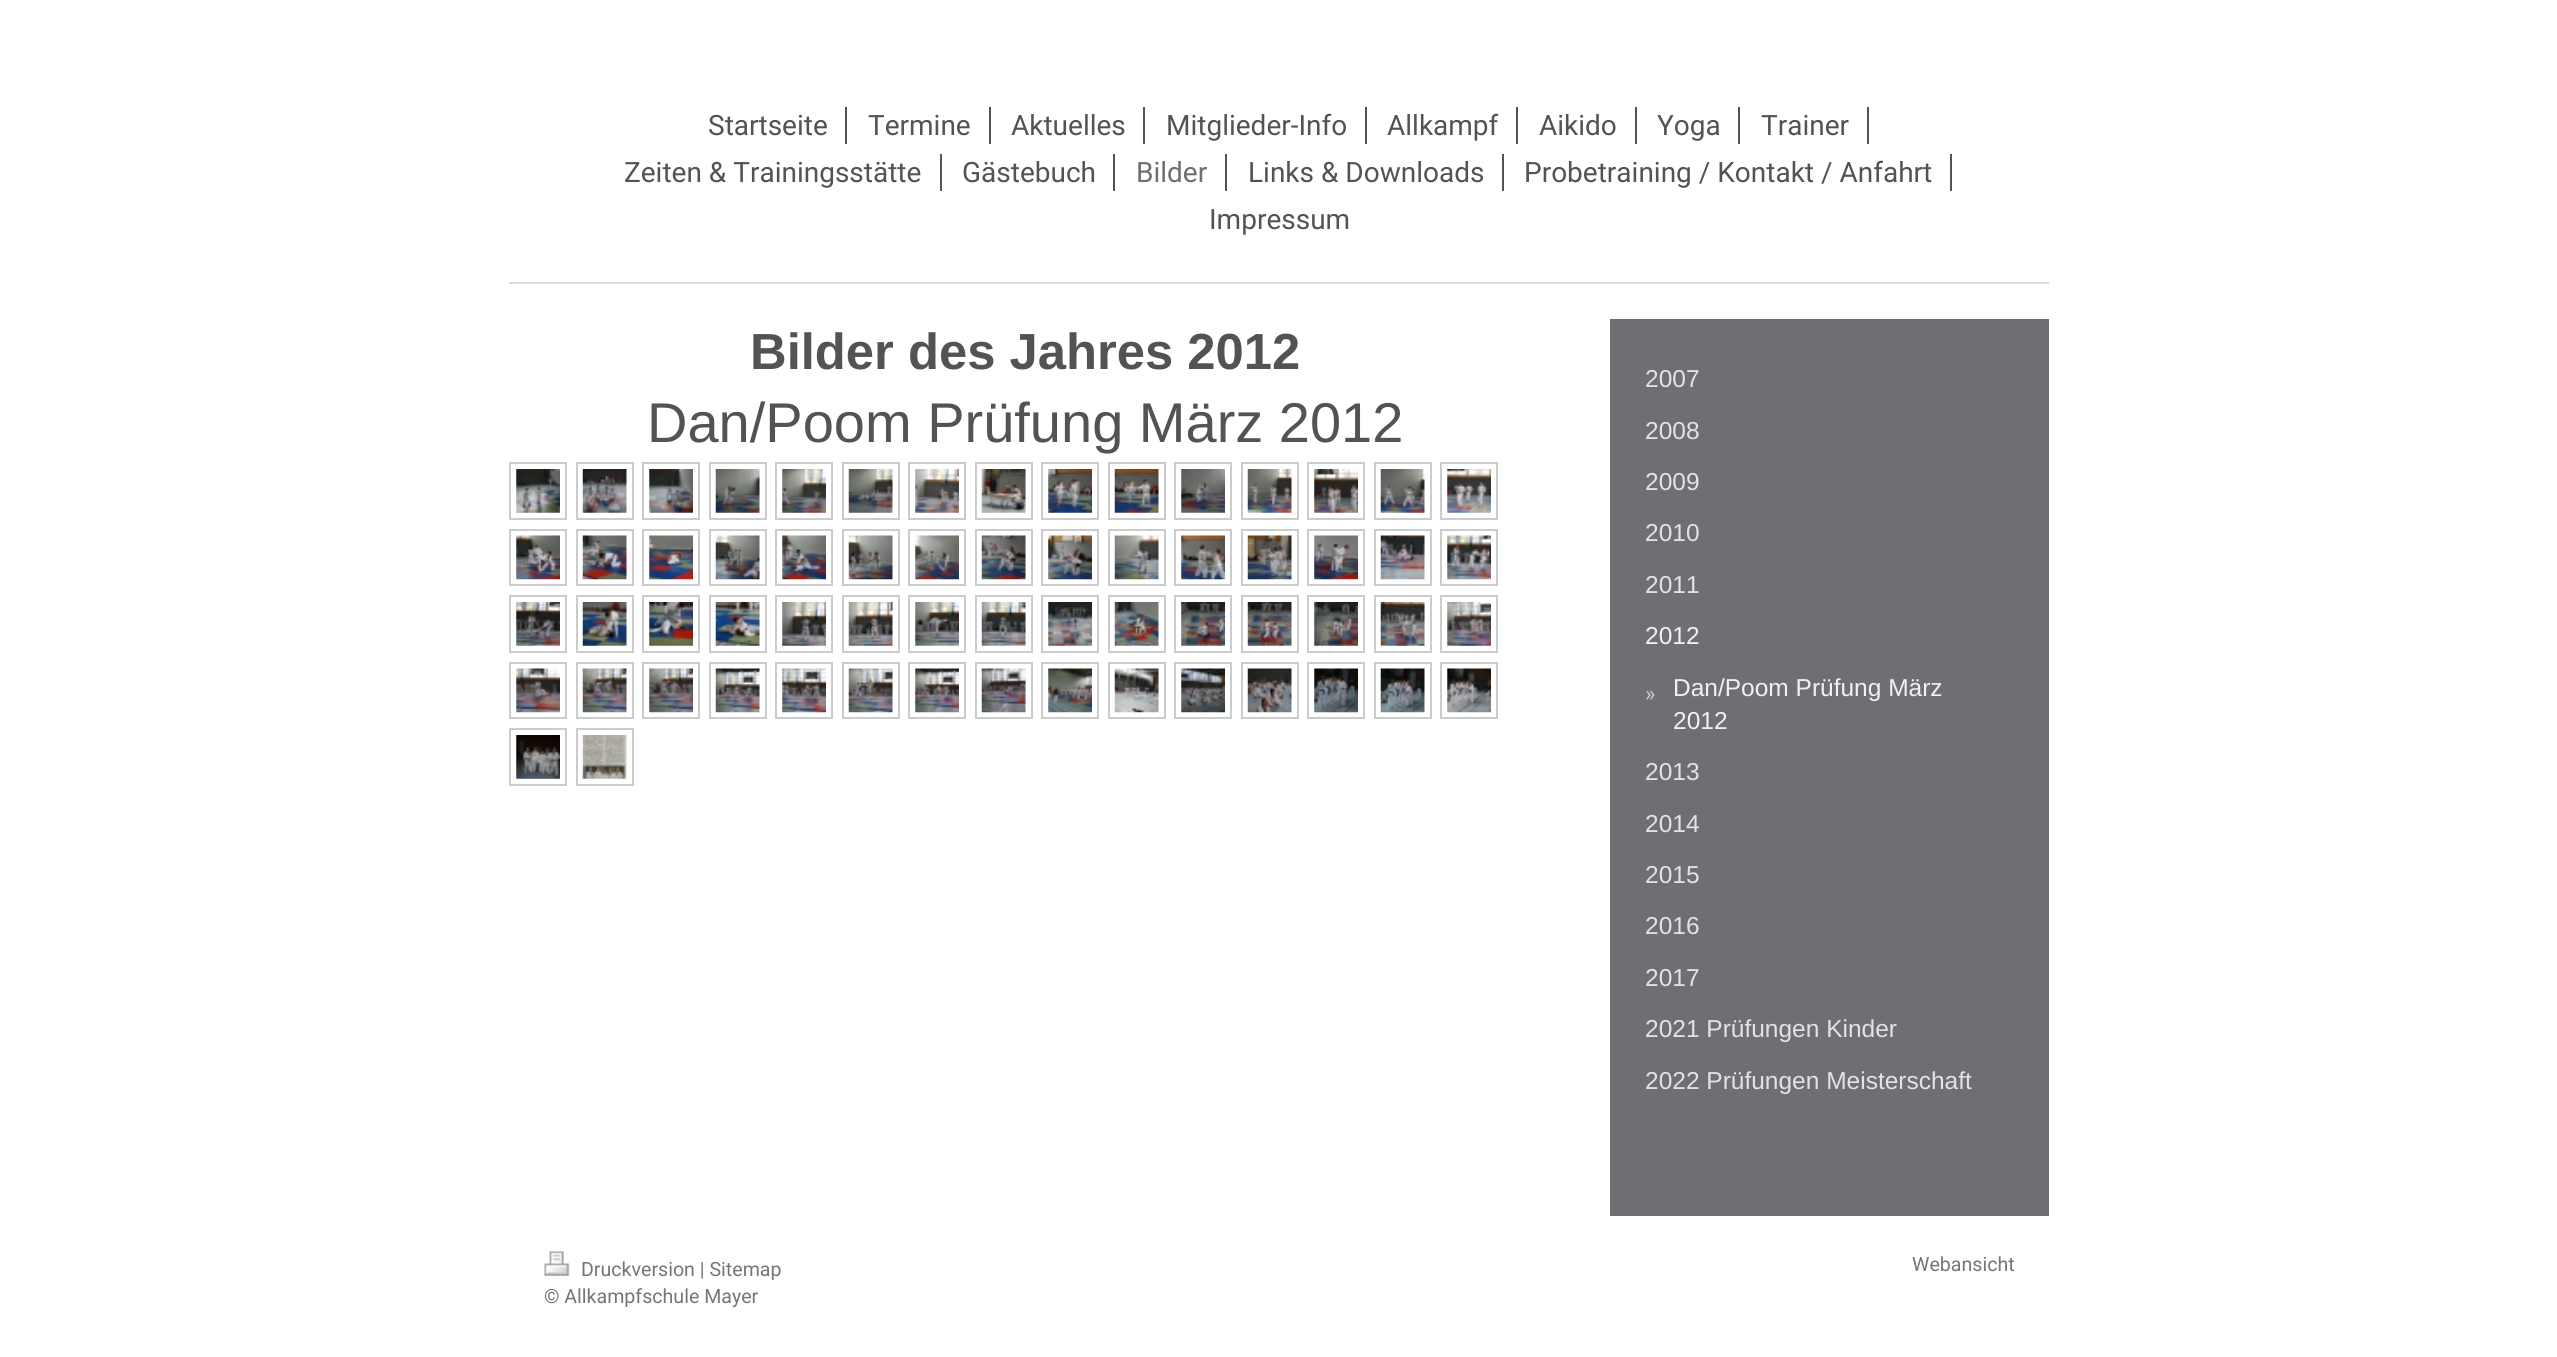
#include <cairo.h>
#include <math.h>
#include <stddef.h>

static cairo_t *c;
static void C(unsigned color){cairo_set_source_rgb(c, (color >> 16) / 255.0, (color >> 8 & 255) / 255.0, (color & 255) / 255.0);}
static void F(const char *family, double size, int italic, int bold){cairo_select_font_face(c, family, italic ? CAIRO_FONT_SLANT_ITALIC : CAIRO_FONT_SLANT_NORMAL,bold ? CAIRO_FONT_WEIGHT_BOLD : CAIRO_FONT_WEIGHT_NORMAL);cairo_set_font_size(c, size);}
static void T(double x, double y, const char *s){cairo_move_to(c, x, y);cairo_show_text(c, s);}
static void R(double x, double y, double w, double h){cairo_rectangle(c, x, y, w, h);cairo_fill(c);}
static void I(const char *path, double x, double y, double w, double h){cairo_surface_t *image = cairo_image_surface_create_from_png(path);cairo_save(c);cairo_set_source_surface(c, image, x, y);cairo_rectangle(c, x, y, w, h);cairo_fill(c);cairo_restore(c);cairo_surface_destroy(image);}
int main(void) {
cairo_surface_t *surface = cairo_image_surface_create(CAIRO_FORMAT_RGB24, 2557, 1357);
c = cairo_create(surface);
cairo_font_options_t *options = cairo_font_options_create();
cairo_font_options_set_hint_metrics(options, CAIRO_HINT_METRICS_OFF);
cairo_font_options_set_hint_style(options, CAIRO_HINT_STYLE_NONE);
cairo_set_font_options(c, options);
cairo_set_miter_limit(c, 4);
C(0xffffff);
cairo_paint(c);
C(0xdddddd);
R(509,282,1540,2);
C(0x535353);
R(845,107,2,37);
F("Roboto",28,0,0);
T(708,135,"Startseite");
R(989,107,2,37);
T(868,135,"Termine");
R(1143,107,2,37);
T(1011,135,"Aktuelles");
R(1365,107,2,37);
T(1166,135,"Mitglieder-Info");
R(1516,107,2,37);
T(1387,135,"Allkampf");
R(1635,107,2,37);
T(1539,135,"Aikido");
R(1738,107,2,37);
T(1657,135,"Yoga");
R(1867,107,2,37);
T(1761,135,"Trainer");
R(940,154,2,37);
T(624,182,"Zeiten & Trainingsstätte");
R(1113,154,2,37);
T(962,182,"Gästebuch");
R(1225,154,2,37);
C(0x6e6f73);
T(1136,182,"Bilder");
C(0x535353);
R(1502,154,2,37);
T(1248,182,"Links & Downloads");
R(1950,154,2,37);
T(1524,182,"Probetraining / Kontakt / Anfahrt");
T(1209,229,"Impressum");
F("Arimo",50.75,0,1);
T(750,369,"Bilder des Jahres 2012");
F("Arimo",56,0,0);
T(647,442,"Dan/Poom Prüfung März 2012");
cairo_rectangle(c,510,463,56,56);
C(0xcccccc);
cairo_stroke(c);
I("1.png",516,469,44,44);
cairo_rectangle(c,577,463,56,56);
cairo_stroke(c);
I("2.png",582,469,45,44);
cairo_rectangle(c,643,463,56,56);
cairo_stroke(c);
I("3.png",649,469,44,44);
cairo_rectangle(c,710,463,56,56);
cairo_stroke(c);
I("4.png",715,469,45,44);
cairo_rectangle(c,776,463,56,56);
cairo_stroke(c);
I("5.png",782,469,44,44);
cairo_rectangle(c,843,463,56,56);
cairo_stroke(c);
I("6.png",848,469,45,44);
cairo_rectangle(c,909,463,56,56);
cairo_stroke(c);
I("7.png",915,469,44,44);
cairo_rectangle(c,976,463,56,56);
cairo_stroke(c);
I("8.png",981,469,45,44);
cairo_rectangle(c,1042,463,56,56);
cairo_stroke(c);
I("9.png",1048,469,44,44);
cairo_rectangle(c,1109,463,56,56);
cairo_stroke(c);
I("10.png",1114,469,45,44);
cairo_rectangle(c,1175,463,56,56);
cairo_stroke(c);
I("11.png",1181,469,44,44);
cairo_rectangle(c,1242,463,56,56);
cairo_stroke(c);
I("12.png",1247,469,45,44);
cairo_rectangle(c,1308,463,56,56);
cairo_stroke(c);
I("13.png",1314,469,44,44);
cairo_rectangle(c,1375,463,56,56);
cairo_stroke(c);
I("14.png",1380,469,45,44);
cairo_rectangle(c,1441,463,56,56);
cairo_stroke(c);
I("15.png",1447,469,44,44);
cairo_rectangle(c,510,530,56,55);
cairo_stroke(c);
I("16.png",516,535,44,45);
cairo_rectangle(c,577,530,56,55);
cairo_stroke(c);
I("17.png",582,535,45,45);
cairo_rectangle(c,643,530,56,55);
cairo_stroke(c);
I("18.png",649,535,44,45);
cairo_rectangle(c,710,530,56,55);
cairo_stroke(c);
I("19.png",715,535,45,45);
cairo_rectangle(c,776,530,56,55);
cairo_stroke(c);
I("20.png",782,535,44,45);
cairo_rectangle(c,843,530,56,55);
cairo_stroke(c);
I("21.png",848,535,45,45);
cairo_rectangle(c,909,530,56,55);
cairo_stroke(c);
I("22.png",915,535,44,45);
cairo_rectangle(c,976,530,56,55);
cairo_stroke(c);
I("23.png",981,535,45,45);
cairo_rectangle(c,1042,530,56,55);
cairo_stroke(c);
I("24.png",1048,535,44,45);
cairo_rectangle(c,1109,530,56,55);
cairo_stroke(c);
I("25.png",1114,535,45,45);
cairo_rectangle(c,1175,530,56,55);
cairo_stroke(c);
I("26.png",1181,535,44,45);
cairo_rectangle(c,1242,530,56,55);
cairo_stroke(c);
I("27.png",1247,535,45,45);
cairo_rectangle(c,1308,530,56,55);
cairo_stroke(c);
I("28.png",1314,535,44,45);
cairo_rectangle(c,1375,530,56,55);
cairo_stroke(c);
I("29.png",1380,535,45,45);
cairo_rectangle(c,1441,530,56,55);
cairo_stroke(c);
I("30.png",1447,535,44,45);
cairo_rectangle(c,510,596,56,56);
cairo_stroke(c);
I("31.png",516,602,44,44);
cairo_rectangle(c,577,596,56,56);
cairo_stroke(c);
I("32.png",582,602,45,44);
cairo_rectangle(c,643,596,56,56);
cairo_stroke(c);
I("33.png",649,602,44,44);
cairo_rectangle(c,710,596,56,56);
cairo_stroke(c);
I("34.png",715,602,45,44);
cairo_rectangle(c,776,596,56,56);
cairo_stroke(c);
I("35.png",782,602,44,44);
cairo_rectangle(c,843,596,56,56);
cairo_stroke(c);
I("36.png",848,602,45,44);
cairo_rectangle(c,909,596,56,56);
cairo_stroke(c);
I("37.png",915,602,44,44);
cairo_rectangle(c,976,596,56,56);
cairo_stroke(c);
I("38.png",981,602,45,44);
cairo_rectangle(c,1042,596,56,56);
cairo_stroke(c);
I("39.png",1048,602,44,44);
cairo_rectangle(c,1109,596,56,56);
cairo_stroke(c);
I("40.png",1114,602,45,44);
cairo_rectangle(c,1175,596,56,56);
cairo_stroke(c);
I("41.png",1181,602,44,44);
cairo_rectangle(c,1242,596,56,56);
cairo_stroke(c);
I("42.png",1247,602,45,44);
cairo_rectangle(c,1308,596,56,56);
cairo_stroke(c);
I("43.png",1314,602,44,44);
cairo_rectangle(c,1375,596,56,56);
cairo_stroke(c);
I("44.png",1380,602,45,44);
cairo_rectangle(c,1441,596,56,56);
cairo_stroke(c);
I("45.png",1447,602,44,44);
cairo_rectangle(c,510,663,56,55);
cairo_stroke(c);
I("46.png",516,668,44,45);
cairo_rectangle(c,577,663,56,55);
cairo_stroke(c);
I("47.png",582,668,45,45);
cairo_rectangle(c,643,663,56,55);
cairo_stroke(c);
I("48.png",649,668,44,45);
cairo_rectangle(c,710,663,56,55);
cairo_stroke(c);
I("49.png",715,668,45,45);
cairo_rectangle(c,776,663,56,55);
cairo_stroke(c);
I("50.png",782,668,44,45);
cairo_rectangle(c,843,663,56,55);
cairo_stroke(c);
I("51.png",848,668,45,45);
cairo_rectangle(c,909,663,56,55);
cairo_stroke(c);
I("52.png",915,668,44,45);
cairo_rectangle(c,976,663,56,55);
cairo_stroke(c);
I("53.png",981,668,45,45);
cairo_rectangle(c,1042,663,56,55);
cairo_stroke(c);
I("54.png",1048,668,44,45);
cairo_rectangle(c,1109,663,56,55);
cairo_stroke(c);
I("55.png",1114,668,45,45);
cairo_rectangle(c,1175,663,56,55);
cairo_stroke(c);
I("56.png",1181,668,44,45);
cairo_rectangle(c,1242,663,56,55);
cairo_stroke(c);
I("57.png",1247,668,45,45);
cairo_rectangle(c,1308,663,56,55);
cairo_stroke(c);
I("58.png",1314,668,44,45);
cairo_rectangle(c,1375,663,56,55);
cairo_stroke(c);
I("59.png",1380,668,45,45);
cairo_rectangle(c,1441,663,56,55);
cairo_stroke(c);
I("60.png",1447,668,44,45);
cairo_rectangle(c,510,729,56,56);
cairo_stroke(c);
I("61.png",516,735,44,44);
cairo_rectangle(c,577,729,56,56);
cairo_stroke(c);
I("62.png",582,735,45,44);
C(0x6e6f73);
R(1610,319,439,897);
F("Liberation Sans",24.5,0,0);
C(0xe3e3e4);
T(1645,387,"2007");
T(1645,439,"2008");
T(1645,490,"2009");
T(1645,541,"2010");
T(1645,593,"2011");
C(0xf1f1f1);
T(1645,644,"2012");
F("Roboto",22,0,0);
C(0xcbcccd);
T(1645,701,"»");
F("Liberation Sans",24.5,0,0);
C(0xf1f1f1);
T(1673,696,"Dan/Poom Prüfung März");
T(1673,729,"2012");
C(0xe3e3e4);
T(1645,780,"2013");
T(1645,832,"2014");
T(1645,883,"2015");
T(1645,934,"2016");
T(1645,986,"2017");
T(1645,1037,"2021 Prüfungen Kinder");
T(1645,1089,"2022 Prüfungen Meisterschaft");
I("63.png",544,1251,26,25);
F("Roboto",19.6,0,0);
C(0x757575);
T(581,1276,"Druckversion | Sitemap");
T(544,1303,"© Allkampfschule Mayer");
T(1912,1271,"Webansicht");
cairo_surface_write_to_png(surface, "o.png");
cairo_font_options_destroy(options);
cairo_destroy(c);
cairo_surface_destroy(surface);
return 0;
}
